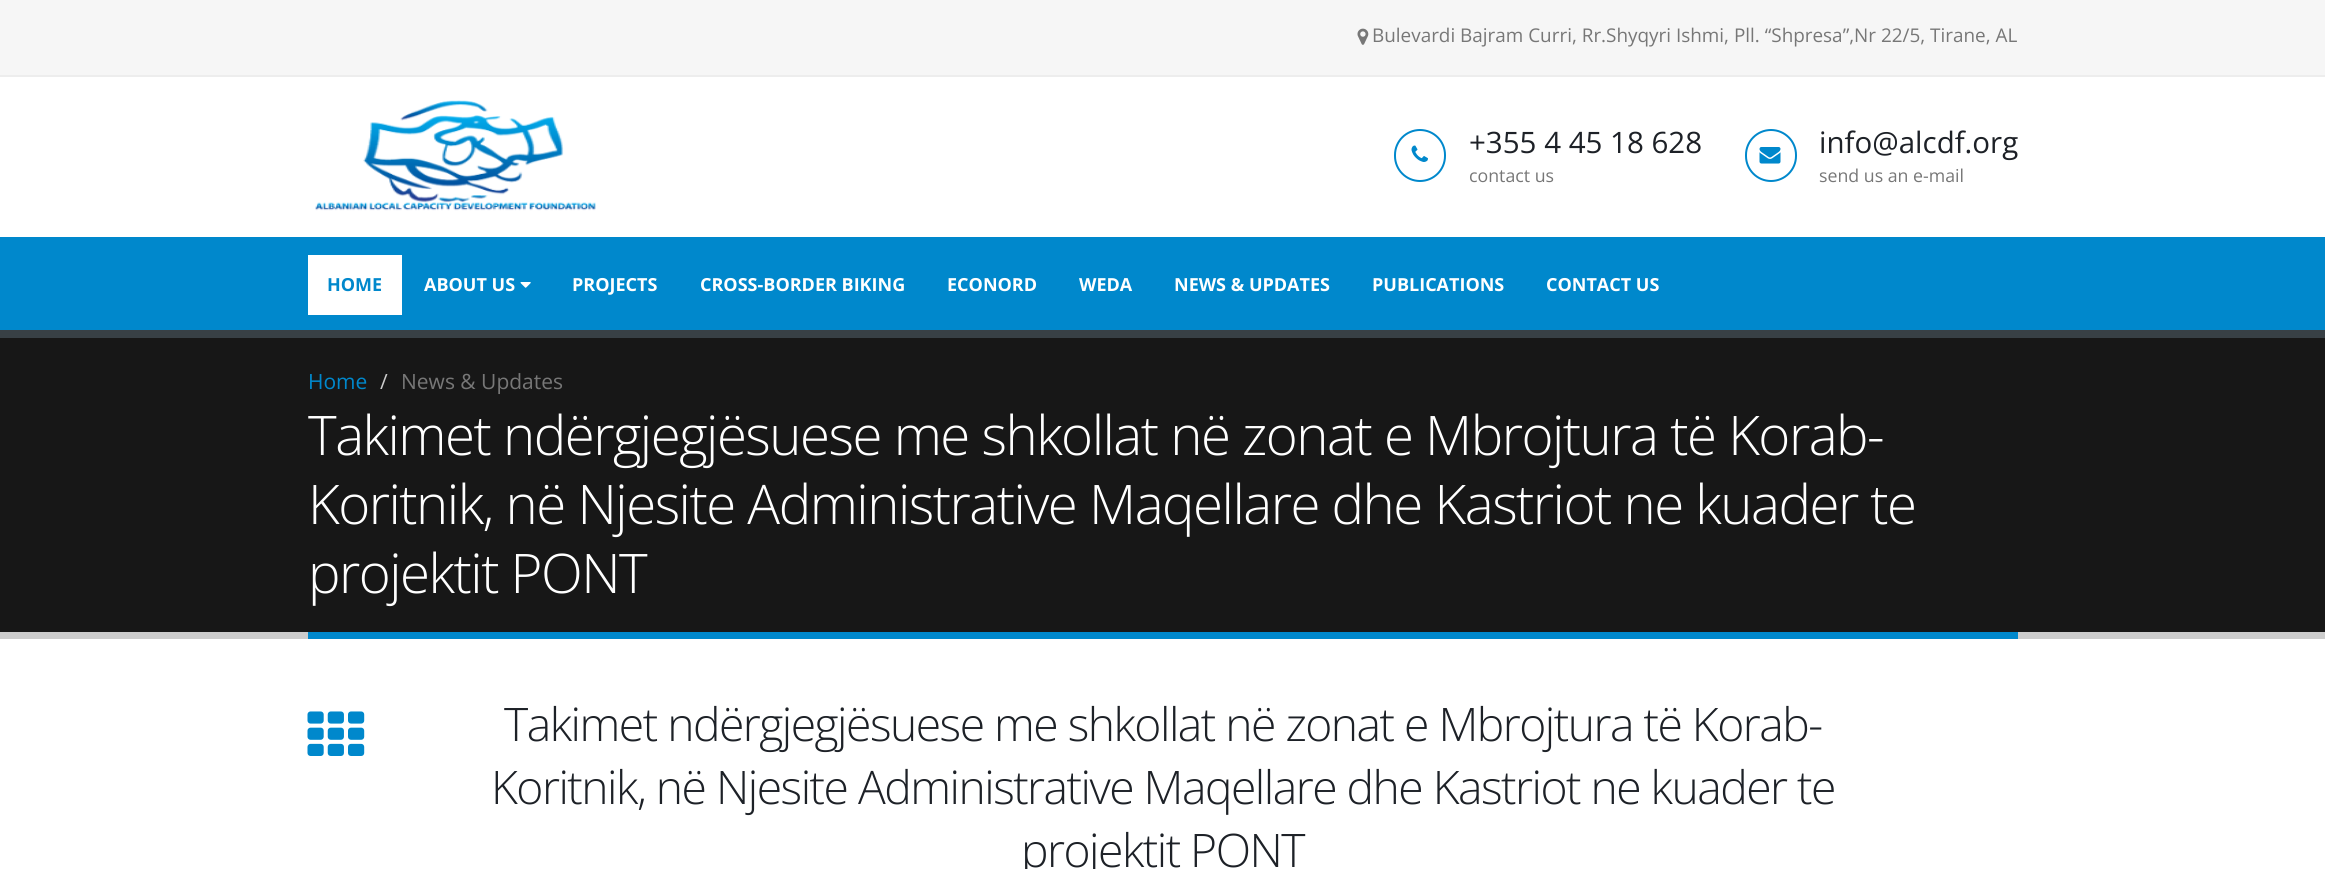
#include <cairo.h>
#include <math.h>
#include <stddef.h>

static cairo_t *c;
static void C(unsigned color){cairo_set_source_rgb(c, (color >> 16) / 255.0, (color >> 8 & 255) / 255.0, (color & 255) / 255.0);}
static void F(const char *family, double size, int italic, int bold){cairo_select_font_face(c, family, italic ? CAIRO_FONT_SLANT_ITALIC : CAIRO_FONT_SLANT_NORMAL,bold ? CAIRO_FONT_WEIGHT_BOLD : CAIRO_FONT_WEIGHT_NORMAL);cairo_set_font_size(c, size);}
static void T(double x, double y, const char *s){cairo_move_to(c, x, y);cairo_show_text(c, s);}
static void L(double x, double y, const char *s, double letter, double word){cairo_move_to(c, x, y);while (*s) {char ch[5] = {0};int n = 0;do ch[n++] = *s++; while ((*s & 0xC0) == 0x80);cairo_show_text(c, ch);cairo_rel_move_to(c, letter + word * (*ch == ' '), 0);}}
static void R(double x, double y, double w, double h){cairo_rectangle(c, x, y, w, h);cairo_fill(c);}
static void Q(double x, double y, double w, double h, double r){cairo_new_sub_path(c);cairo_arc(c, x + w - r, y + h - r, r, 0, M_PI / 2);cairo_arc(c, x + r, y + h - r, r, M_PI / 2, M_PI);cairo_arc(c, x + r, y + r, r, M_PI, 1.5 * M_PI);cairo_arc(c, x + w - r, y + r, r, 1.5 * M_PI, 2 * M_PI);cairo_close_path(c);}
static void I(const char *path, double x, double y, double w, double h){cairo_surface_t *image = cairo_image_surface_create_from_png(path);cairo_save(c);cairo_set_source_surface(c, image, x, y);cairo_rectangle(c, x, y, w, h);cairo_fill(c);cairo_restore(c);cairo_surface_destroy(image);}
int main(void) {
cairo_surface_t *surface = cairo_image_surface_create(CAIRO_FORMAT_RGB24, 2325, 869);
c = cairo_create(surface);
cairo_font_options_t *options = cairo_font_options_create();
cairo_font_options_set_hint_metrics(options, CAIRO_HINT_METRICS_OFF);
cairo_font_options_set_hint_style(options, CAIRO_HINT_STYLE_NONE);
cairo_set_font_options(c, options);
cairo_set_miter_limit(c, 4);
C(0xffffff);
cairo_paint(c);
C(0xf6f6f6);
R(0,0,2325,75);
C(0xededed);
R(0,75,2325,2);
I("1.png",1357,28,12,17);
F("Open Sans",18.9,0,0);
C(0x777777);
T(1372,42,"Bulevardi Bajram Curri, Rr.Shyqyri Ishmi, Pll. “Shpresa”,Nr 22/5, Tirane, AL");
I("2.png",315,100,281,111);
Q(1395,130,50,51,25);
C(0x0088cc);
cairo_stroke(c);
I("3.png",1411,145,17,17);
F("Open Sans",29.5,0,0);
C(0x1d2127);
T(1469,153,"+355 4 45 18 628");
F("Open Sans",17.75,0,0);
C(0x777777);
T(1469,182,"contact us");
Q(1746,130,50,51,25);
C(0x0088cc);
cairo_stroke(c);
I("4.png",1759,147,22,17);
F("Open Sans",29.5,0,0);
C(0x1d2127);
T(1819,153,"info@alcdf.org");
F("Open Sans",17.75,0,0);
C(0x777777);
T(1819,182,"send us an e-mail");
C(0x0088cc);
R(0,237,2325,93);
C(0xffffff);
R(308,255,94,60);
F("Open Sans",18,0,1);
C(0x0088cc);
T(327,291,"HOME");
C(0xffffff);
T(424,291,"ABOUT US");
I("5.png",520,282,11,6);
T(572,291,"PROJECTS");
T(700,291,"CROSS-BORDER BIKING");
T(947,291,"ECONORD");
T(1079,291,"WEDA");
T(1174,291,"NEWS & UPDATES");
T(1372,291,"PUBLICATIONS");
T(1546,291,"CONTACT US");
C(0x171717);
R(0,338,2325,294);
C(0x384045);
R(0,330,2325,8);
C(0xcccccc);
R(0,632,2325,7);
F("Open Sans",21,0,0);
C(0x0088cc);
T(308,389,"Home");
C(0xcccccc);
T(380,389,"/");
C(0x777777);
T(401,389,"News & Updates");
C(0x0088cc);
R(308,632,1710,7);
F("Open Sans Light",54.6,0,0);
C(0xffffff);
L(308,455,"Takimet ndërgjegjësuese me shkollat në zonat e Mbrojtura të Korab-",-1.5,0);
L(308,524,"Koritnik, në Njesite Administrative Maqellare dhe Kastriot ne kuader te",-1.5,0);
L(308,593,"projektit PONT",-1.5,0);
I("6.png",307,711,58,45);
F("Open Sans Light",46.2,0,0);
C(0x1d2127);
L(504,741,"Takimet ndërgjegjësuese me shkollat në zonat e Mbrojtura të Korab-",-1.5,0);
L(491,804,"Koritnik, në Njesite Administrative Maqellare dhe Kastriot ne kuader te",-1.5,0);
L(1021,867,"projektit PONT",-1.5,0);
cairo_surface_write_to_png(surface, "o.png");
cairo_font_options_destroy(options);
cairo_destroy(c);
cairo_surface_destroy(surface);
return 0;
}
